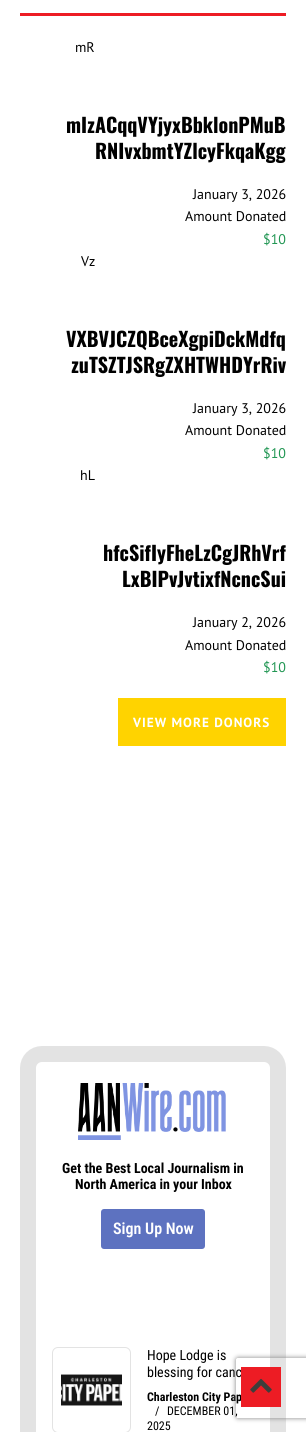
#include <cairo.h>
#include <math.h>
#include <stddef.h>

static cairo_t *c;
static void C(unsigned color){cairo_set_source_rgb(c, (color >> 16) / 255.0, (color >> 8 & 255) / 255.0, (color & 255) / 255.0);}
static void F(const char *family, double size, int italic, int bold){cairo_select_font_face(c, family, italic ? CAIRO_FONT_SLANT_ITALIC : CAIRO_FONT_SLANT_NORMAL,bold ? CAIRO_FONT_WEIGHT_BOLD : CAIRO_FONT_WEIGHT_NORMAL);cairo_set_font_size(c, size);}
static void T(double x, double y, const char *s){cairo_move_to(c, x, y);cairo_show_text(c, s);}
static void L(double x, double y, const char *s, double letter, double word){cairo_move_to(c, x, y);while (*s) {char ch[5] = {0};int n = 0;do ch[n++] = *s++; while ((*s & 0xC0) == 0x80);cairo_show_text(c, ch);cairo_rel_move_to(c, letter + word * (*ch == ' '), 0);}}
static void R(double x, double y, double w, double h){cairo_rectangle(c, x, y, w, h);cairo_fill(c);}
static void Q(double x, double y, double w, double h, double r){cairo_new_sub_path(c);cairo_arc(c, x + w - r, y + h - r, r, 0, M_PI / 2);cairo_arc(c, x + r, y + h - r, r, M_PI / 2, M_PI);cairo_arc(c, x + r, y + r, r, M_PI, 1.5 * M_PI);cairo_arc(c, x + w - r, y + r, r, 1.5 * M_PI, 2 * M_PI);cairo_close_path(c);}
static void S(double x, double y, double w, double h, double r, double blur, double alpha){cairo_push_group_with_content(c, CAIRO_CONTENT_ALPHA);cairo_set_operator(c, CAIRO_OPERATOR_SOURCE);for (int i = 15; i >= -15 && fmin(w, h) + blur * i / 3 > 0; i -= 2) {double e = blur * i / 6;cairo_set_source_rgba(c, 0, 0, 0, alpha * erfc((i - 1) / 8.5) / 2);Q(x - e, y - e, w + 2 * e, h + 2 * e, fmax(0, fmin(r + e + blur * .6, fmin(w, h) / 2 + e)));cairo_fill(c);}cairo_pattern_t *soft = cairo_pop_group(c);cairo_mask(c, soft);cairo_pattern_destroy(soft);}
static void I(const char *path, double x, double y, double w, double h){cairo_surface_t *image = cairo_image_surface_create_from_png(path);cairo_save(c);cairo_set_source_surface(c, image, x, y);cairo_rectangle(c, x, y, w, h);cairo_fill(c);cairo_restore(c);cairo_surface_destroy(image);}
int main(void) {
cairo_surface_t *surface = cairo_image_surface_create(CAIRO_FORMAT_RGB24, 306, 1432);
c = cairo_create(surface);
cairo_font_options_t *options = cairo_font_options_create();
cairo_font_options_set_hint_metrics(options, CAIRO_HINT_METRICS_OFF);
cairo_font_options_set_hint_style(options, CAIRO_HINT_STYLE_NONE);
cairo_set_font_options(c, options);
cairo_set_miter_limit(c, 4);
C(0xffffff);
cairo_paint(c);
C(0xed1c24);
R(20,13,266,3);
F("PT Sans",14,0,0);
C(0x000000);
T(75,52,"mR");
F("Oswald",20,0,1);
T(66,133,"mIzACqqVYjyxBbklonPMuB");
T(95,159,"RNIvxbmtYZlcyFkqaKgg");
F("PT Sans",14,0,0);
T(193,199,"January 3, 2026");
T(185,221,"Amount Donated");
C(0x219653);
T(263,244,"$10");
C(0x000000);
T(81,266,"Vz");
F("Oswald",20,0,1);
T(66,347,"VXBVJCZQBceXgpiDckMdfq");
T(71,373,"zuTSZTJSRgZXHTWHDYrRiv");
F("PT Sans",14,0,0);
T(193,413,"January 3, 2026");
T(185,435,"Amount Donated");
C(0x219653);
T(263,458,"$10");
C(0x000000);
T(80,480,"hL");
F("Oswald",20,0,1);
T(103,561,"hfcSifIyFheLzCgJRhVrf");
T(122,587,"LxBIPvJvtixfNcncSui");
F("PT Sans",14,0,0);
T(193,627,"January 2, 2026");
T(185,650,"Amount Donated");
C(0x219653);
T(263,672,"$10");
C(0xffd300);
R(118,698,168,48);
F("PT Sans",13.25,0,1);
C(0xffffff);
L(133,727,"VIEW MORE DONORS",1,0);
Q(28,1054,250,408,14);
C(0xe3e3e3);
cairo_set_line_width(c,16);
cairo_stroke(c);
I("1.png",78,1083,148,57);
F("Roboto Condensed",14,0,1);
C(0x000000);
T(62,1173,"Get the Best Local Journalism in");
T(75,1189,"North America in your Inbox");
C(0x5d72c0);
Q(101,1209,104,40,3);
cairo_fill(c);
F("Roboto Condensed SemiBold",16,0,0);
C(0xffffff);
T(113,1234,"Sign Up Now");
Q(52.5,1347.5,78,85,5.5);
C(0xe3e3e3);
cairo_set_line_width(c,1);
cairo_stroke(c);
I("2.png",61,1374,61,32);
F("Roboto Condensed",14,0,0);
C(0x000000);
T(147,1360,"Hope Lodge is");
T(147,1377,"blessing for canc");
F("Roboto Condensed",12,0,1);
T(147,1401,"Charleston City Pap");
F("Roboto Condensed",12,0,0);
T(155,1415,"/");
T(167,1415,"DECEMBER 01,");
T(147,1430,"2025");
cairo_save(c);
cairo_set_fill_rule(c,CAIRO_FILL_RULE_EVEN_ODD);
cairo_new_path(c);
cairo_move_to(c,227,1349);
cairo_line_to(c,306,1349);
cairo_line_to(c,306,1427);
cairo_line_to(c,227,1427);
cairo_close_path(c);
cairo_move_to(c,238,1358);
cairo_line_to(c,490,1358);
cairo_curve_to(c,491,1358,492,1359,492,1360);
cairo_line_to(c,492,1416);
cairo_curve_to(c,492,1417,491,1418,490,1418);
cairo_line_to(c,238,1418);
cairo_curve_to(c,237,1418,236,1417,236,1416);
cairo_line_to(c,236,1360);
cairo_curve_to(c,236,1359,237,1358,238,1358);
cairo_close_path(c);
cairo_clip(c);
C(0x808080);
S(236,1358,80,60,2,2.5,1);
cairo_restore(c);
C(0xed1c24);
R(241,1367,40,40);
I("3.png",250,1378,22,15);
cairo_surface_write_to_png(surface, "o.png");
cairo_font_options_destroy(options);
cairo_destroy(c);
cairo_surface_destroy(surface);
return 0;
}
